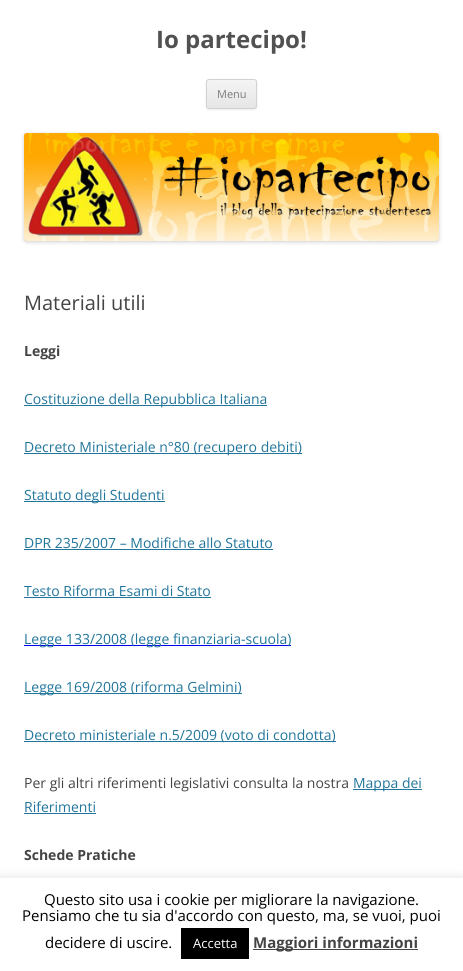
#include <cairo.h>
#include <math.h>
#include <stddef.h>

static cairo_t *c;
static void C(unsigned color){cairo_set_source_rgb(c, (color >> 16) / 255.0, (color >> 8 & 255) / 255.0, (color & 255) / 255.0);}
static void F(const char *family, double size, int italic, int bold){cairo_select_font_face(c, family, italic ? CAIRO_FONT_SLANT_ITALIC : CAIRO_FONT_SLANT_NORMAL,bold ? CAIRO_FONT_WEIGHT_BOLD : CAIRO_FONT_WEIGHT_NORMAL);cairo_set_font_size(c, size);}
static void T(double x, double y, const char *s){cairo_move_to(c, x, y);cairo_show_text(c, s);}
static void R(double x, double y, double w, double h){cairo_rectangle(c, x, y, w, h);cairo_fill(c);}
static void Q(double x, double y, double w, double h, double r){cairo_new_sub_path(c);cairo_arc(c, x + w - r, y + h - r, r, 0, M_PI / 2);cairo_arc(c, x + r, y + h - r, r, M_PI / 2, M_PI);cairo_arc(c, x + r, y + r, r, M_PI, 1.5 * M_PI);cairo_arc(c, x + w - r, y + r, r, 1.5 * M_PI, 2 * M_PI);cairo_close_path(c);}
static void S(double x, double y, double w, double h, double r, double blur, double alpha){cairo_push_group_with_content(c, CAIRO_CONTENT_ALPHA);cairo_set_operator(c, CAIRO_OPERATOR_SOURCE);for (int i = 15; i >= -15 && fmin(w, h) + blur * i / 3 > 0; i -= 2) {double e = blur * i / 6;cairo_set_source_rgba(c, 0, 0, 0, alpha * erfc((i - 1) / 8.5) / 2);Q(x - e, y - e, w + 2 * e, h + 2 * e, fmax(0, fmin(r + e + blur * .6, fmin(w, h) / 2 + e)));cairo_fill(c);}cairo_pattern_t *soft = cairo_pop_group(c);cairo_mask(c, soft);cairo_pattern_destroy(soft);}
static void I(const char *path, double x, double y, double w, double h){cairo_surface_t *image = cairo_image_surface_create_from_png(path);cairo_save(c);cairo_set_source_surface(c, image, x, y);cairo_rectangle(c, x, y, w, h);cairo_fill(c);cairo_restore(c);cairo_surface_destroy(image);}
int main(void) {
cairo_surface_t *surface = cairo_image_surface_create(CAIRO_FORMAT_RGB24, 463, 971);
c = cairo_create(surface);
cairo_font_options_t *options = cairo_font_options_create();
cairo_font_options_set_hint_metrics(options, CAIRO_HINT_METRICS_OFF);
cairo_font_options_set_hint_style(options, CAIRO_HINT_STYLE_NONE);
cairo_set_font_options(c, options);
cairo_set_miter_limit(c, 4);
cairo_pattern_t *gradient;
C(0xffffff);
cairo_paint(c);
F("Open Sans",24,0,1);
C(0x515151);
T(156,48,"Io partecipo!");
C(0x404040);
S(206,80,51,30,3,1,.1);
cairo_save(c);
Q(206,79,51,30,3);
cairo_clip(c);
gradient = cairo_pattern_create_linear(232,80,232,108);
cairo_pattern_add_color_stop_rgba(gradient,0,0.957,0.957,0.957,1);
cairo_pattern_add_color_stop_rgba(gradient,1,0.902,0.902,0.902,1);
cairo_set_source(c,gradient);
cairo_pattern_destroy(gradient);
R(206,80,51,28);
cairo_restore(c);
Q(206.5,79.5,50,29,2.5);
C(0xd2d2d2);
cairo_set_line_width(c,1);
cairo_stroke(c);
F("Open Sans",11,0,0);
C(0x7c7c7c);
T(217,98,"Menu");
C(0x000000);
S(24,134,415,108,3,2,.2);
I("1.png",24,133,415,108);
F("Open Sans",20,0,0);
C(0x444444);
T(24,310,"Materiali utili");
F("Open Sans",14,0,1);
T(24,356,"Leggi");
C(0x21759b);
R(24,405,243,1);
F("Open Sans",14,0,0);
T(24,404,"Costituzione della Repubblica Italiana");
R(24,453,278,1);
T(24,452,"Decreto Ministeriale n°80 (recupero debiti)");
R(24,501,141,1);
T(24,500,"Statuto degli Studenti");
T(24,548,"DPR 235/2007 – Modifiche allo Statuto");
R(24,549,249,1);
T(24,596,"Testo Riforma Esami di Stato");
R(24,597,187,1);
C(0x0000ee);
R(24,645,267,1);
C(0x21759b);
T(24,644,"Legge 133/2008 (legge finanziaria-scuola)");
R(24,693,218,1);
T(24,692,"Legge 169/2008 (riforma Gelmini)");
R(24,741,312,1);
T(24,740,"Decreto ministeriale n.5/2009 (voto di condotta)");
C(0x444444);
T(24,788,"Per gli altri riferimenti legislativi consulta la nostra");
C(0x21759b);
R(353,789,69,1);
T(353,788,"Mappa dei");
T(24,812,"Riferimenti");
R(24,813,72,1);
F("Open Sans",14,0,1);
C(0x444444);
T(24,860,"Schede Pratiche");
C(0xacabab);
S(0,877,463,93,0,5,.3);
C(0xffffff);
R(0,878,463,93);
F("Open Sans",15,0,0);
C(0x000000);
T(44,905,"Questo sito usa i cookie per migliorare la navigazione.");
T(22,921,"Pensiamo che tu sia d'accordo con questo, ma, se vuoi, puoi");
T(45,948,"decidere di uscire.");
R(181,928,68,31);
F("Open Sans",13,0,0);
C(0xffffff);
T(193,948,"Accetta");
C(0x444444);
R(253,949,165,1);
F("Open Sans",15,0,1);
T(253,948,"Maggiori informazioni");
cairo_surface_write_to_png(surface, "o.png");
cairo_font_options_destroy(options);
cairo_destroy(c);
cairo_surface_destroy(surface);
return 0;
}
